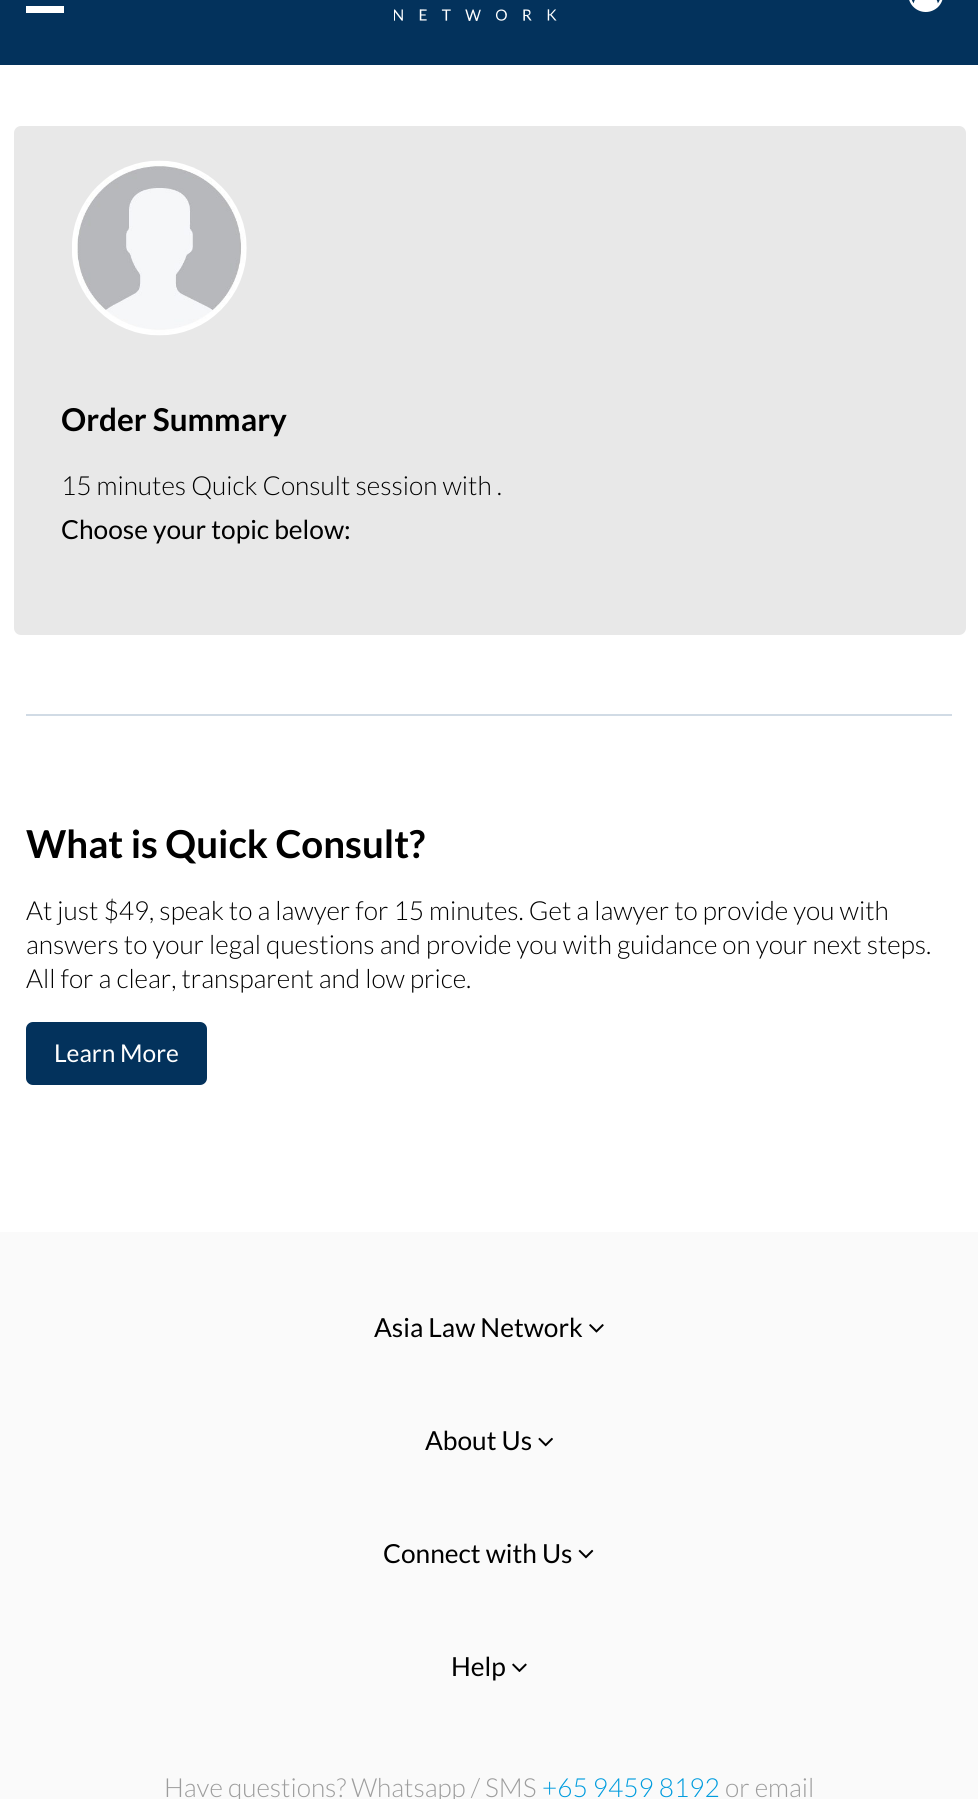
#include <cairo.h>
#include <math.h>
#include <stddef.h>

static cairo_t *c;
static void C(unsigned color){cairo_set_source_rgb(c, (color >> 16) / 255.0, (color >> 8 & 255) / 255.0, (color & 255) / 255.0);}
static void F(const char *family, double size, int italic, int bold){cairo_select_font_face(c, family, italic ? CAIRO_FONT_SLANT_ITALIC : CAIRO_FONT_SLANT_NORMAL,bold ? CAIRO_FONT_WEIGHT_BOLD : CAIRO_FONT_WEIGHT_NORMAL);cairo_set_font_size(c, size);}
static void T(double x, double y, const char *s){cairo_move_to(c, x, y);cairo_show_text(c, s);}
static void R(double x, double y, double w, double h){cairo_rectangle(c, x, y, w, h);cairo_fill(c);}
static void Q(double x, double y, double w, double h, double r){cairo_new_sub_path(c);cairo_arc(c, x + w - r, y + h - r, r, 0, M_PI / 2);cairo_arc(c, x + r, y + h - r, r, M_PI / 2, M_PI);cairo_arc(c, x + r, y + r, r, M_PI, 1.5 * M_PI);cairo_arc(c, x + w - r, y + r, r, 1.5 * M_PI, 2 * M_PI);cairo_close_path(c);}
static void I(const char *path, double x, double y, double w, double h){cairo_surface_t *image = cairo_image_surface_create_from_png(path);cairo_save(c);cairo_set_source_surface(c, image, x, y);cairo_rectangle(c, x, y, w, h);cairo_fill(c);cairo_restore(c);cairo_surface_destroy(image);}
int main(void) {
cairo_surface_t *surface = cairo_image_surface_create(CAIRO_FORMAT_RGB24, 978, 1799);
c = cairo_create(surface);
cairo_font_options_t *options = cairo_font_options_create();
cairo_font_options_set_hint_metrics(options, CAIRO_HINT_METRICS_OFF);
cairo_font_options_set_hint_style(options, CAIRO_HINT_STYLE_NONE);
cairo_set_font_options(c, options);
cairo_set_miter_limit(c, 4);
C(0xffffff);
cairo_paint(c);
C(0x03325c);
R(0,0,978,65);
C(0xffffff);
R(26,6,38,7);
I("1.png",909,0,34,12);
I("2.png",394,9,163,12);
C(0xe8e8e8);
Q(14,126,952,509,7);
cairo_fill(c);
I("3.png",72,160,175,176);
F("Lato",31.5,0,1);
C(0x000000);
T(61,431,"Order Summary");
F("Lato Light",26.25,0,0);
T(61,495,"15 minutes Quick Consult session with .");
F("Lato",26.25,0,0);
T(61,539,"Choose your topic below:");
C(0xd1dbe5);
R(26,714,926,2);
F("Lato",38.5,0,1);
C(0x000000);
T(26,858,"What is Quick Consult?");
F("Lato Light",26.25,0,0);
T(26,920,"At just $49, speak to a lawyer for 15 minutes. Get a lawyer to provide you with");
T(26,954,"answers to your legal questions and provide you with guidance on your next steps.");
T(26,988,"All for a clear, transparent and low price.");
C(0x03325c);
Q(27,1023,179,61,6);
cairo_fill_preserve(c);
cairo_stroke(c);
F("Lato",24.5,0,0);
C(0xffffff);
T(54,1062,"Learn More");
C(0xfafafa);
R(0,1232,978,567);
F("Lato",26.25,0,0);
C(0x000000);
T(374,1337,"Asia Law Network");
I("4.png",589,1324,15,9);
T(425,1450,"About Us");
I("5.png",538,1437,15,10);
T(383,1563,"Connect with Us");
I("6.png",578,1549,16,10);
T(451,1676,"Help");
I("7.png",512,1663,15,9);
F("Lato Light",26.25,0,0);
C(0x9d9d9d);
T(164,1797,"Have questions? Whatsapp / SMS");
C(0x009cde);
T(542,1797,"+65 9459 8192");
C(0x9d9d9d);
T(725,1797,"or email");
cairo_surface_write_to_png(surface, "o.png");
cairo_font_options_destroy(options);
cairo_destroy(c);
cairo_surface_destroy(surface);
return 0;
}
